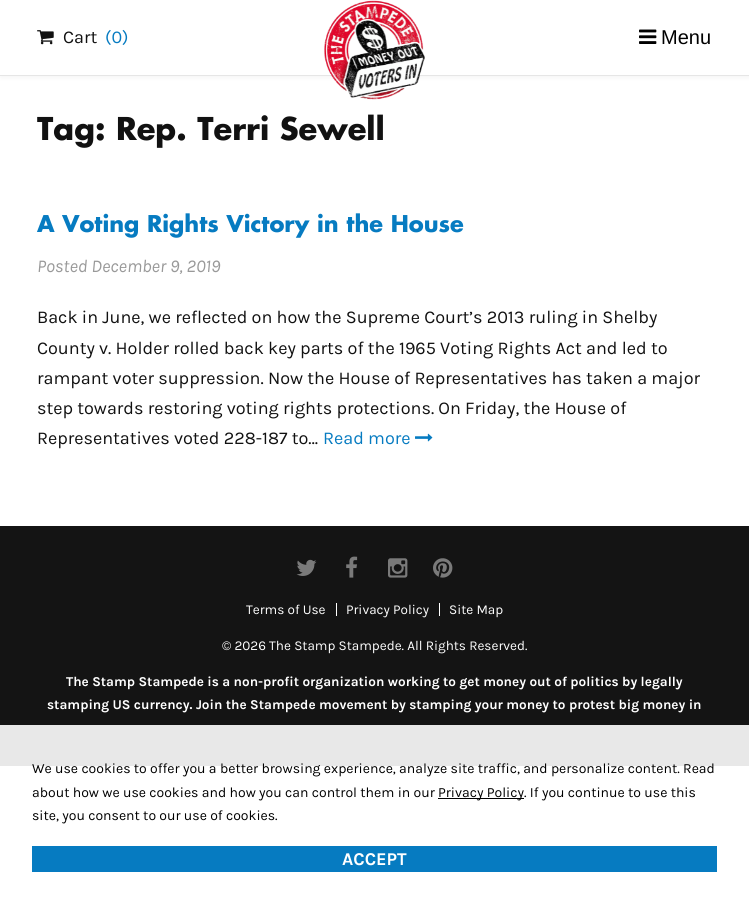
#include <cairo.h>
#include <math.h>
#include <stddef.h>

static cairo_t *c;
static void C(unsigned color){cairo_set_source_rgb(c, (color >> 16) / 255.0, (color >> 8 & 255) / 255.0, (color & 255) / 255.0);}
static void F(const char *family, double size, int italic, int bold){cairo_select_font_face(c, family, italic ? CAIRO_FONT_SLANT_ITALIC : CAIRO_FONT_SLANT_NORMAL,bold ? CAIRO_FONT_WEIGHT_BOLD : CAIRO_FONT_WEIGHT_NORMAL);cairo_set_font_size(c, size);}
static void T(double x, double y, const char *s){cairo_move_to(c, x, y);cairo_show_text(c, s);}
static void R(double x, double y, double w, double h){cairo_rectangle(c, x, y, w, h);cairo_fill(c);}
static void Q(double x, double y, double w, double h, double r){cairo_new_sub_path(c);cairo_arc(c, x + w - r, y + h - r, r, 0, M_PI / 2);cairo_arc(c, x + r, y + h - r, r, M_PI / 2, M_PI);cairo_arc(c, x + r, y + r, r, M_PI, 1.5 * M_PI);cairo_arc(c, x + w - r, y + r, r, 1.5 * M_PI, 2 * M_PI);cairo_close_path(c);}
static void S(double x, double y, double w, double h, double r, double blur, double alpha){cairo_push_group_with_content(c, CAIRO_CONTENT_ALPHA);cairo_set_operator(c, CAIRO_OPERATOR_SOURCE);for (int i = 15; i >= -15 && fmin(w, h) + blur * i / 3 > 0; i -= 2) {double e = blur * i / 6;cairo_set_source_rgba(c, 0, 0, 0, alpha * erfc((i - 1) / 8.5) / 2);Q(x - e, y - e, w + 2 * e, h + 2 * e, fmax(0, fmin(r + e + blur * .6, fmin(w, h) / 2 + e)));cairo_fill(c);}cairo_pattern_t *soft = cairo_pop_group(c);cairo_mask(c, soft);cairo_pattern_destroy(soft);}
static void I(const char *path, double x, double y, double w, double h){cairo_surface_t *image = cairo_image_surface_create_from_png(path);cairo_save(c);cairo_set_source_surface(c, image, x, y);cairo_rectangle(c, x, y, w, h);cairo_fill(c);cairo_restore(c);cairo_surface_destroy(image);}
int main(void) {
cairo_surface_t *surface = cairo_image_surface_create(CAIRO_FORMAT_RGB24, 749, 906);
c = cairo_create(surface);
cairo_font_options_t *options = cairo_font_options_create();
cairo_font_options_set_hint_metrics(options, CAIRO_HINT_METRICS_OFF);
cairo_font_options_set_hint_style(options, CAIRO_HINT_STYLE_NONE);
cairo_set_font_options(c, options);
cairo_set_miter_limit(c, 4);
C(0xffffff);
cairo_paint(c);
C(0xe6e6e6);
S(1,1,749,76,0,2.5,.5);
C(0xffffff);
R(0,0,749,75);
C(0xe6e6e6);
R(0,75,749,1);
I("1.png",37,30,17,15);
F("Karla",18,0,0);
C(0x111111);
T(63,43,"Cart");
C(0x067bc1);
T(105,43,"(0)");
I("2.png",324,0,101,100);
I("3.png",639,29,18,15);
F("Liberation Sans",20,0,0);
C(0x000000);
T(661,44,"Menu");
F("Futura",30.6,0,0);
C(0x111111);
T(37,140,"Tag: Rep. Terri Sewell");
F("Futura",22.5,0,0);
C(0x067bc1);
T(37,232,"A Voting Rights Victory in the House");
F("Karla",18,1,0);
C(0x999999);
T(37,272,"Posted December 9, 2019");
F("Karla",18,0,0);
C(0x111111);
T(37,323,"Back in June, we reflected on how the Supreme Court’s 2013 ruling in Shelby");
T(37,354,"County v. Holder rolled back key parts of the 1965 Voting Rights Act and led to");
T(37,384,"rampant voter suppression. Now the House of Representatives has taken a major");
T(37,414,"step towards restoring voting rights protections. On Friday, the House of");
T(37,444,"Representatives voted 228-187 to…");
C(0x067bc1);
T(323,444,"Read more");
I("4.png",415,433,18,9);
C(0x141414);
R(0,526,749,240);
I("5.png",296,559,21,17);
I("6.png",346,556,12,22);
I("7.png",388,558,20,20);
I("8.png",433,558,20,20);
F("Karla",13.5,0,0);
C(0xffffff);
T(246,614,"Terms of Use");
R(336,603,1,13);
T(346,614,"Privacy Policy");
R(439,603,1,13);
T(449,614,"Site Map");
T(222,650,"© 2026 The Stamp Stampede. All Rights Reserved.");
F("Karla",13.5,0,1);
T(66,686,"The Stamp Stampede is a non-profit organization working to get money out of politics by legally");
T(47,709,"stamping US currency. Join the Stampede movement by stamping your money to protest big money in");
cairo_set_source_rgba(c,1,1,1,0.9);
R(0,725,749,41);
F("Karla",14,0,0);
C(0x000000);
T(32,773,"We use cookies to offer you a better browsing experience, analyze site traffic, and personalize content. Read");
T(32,797,"about how we use cookies and how you can control them in our");
R(438,798,86,1);
T(438,797,"Privacy Policy. If you continue to use this");
T(32,820,"site, you consent to our use of cookies.");
C(0x067bc1);
R(32,846,685,26);
F("Karla",18,0,1);
C(0xffffff);
T(342,865,"ACCEPT");
cairo_surface_write_to_png(surface, "o.png");
cairo_font_options_destroy(options);
cairo_destroy(c);
cairo_surface_destroy(surface);
return 0;
}
